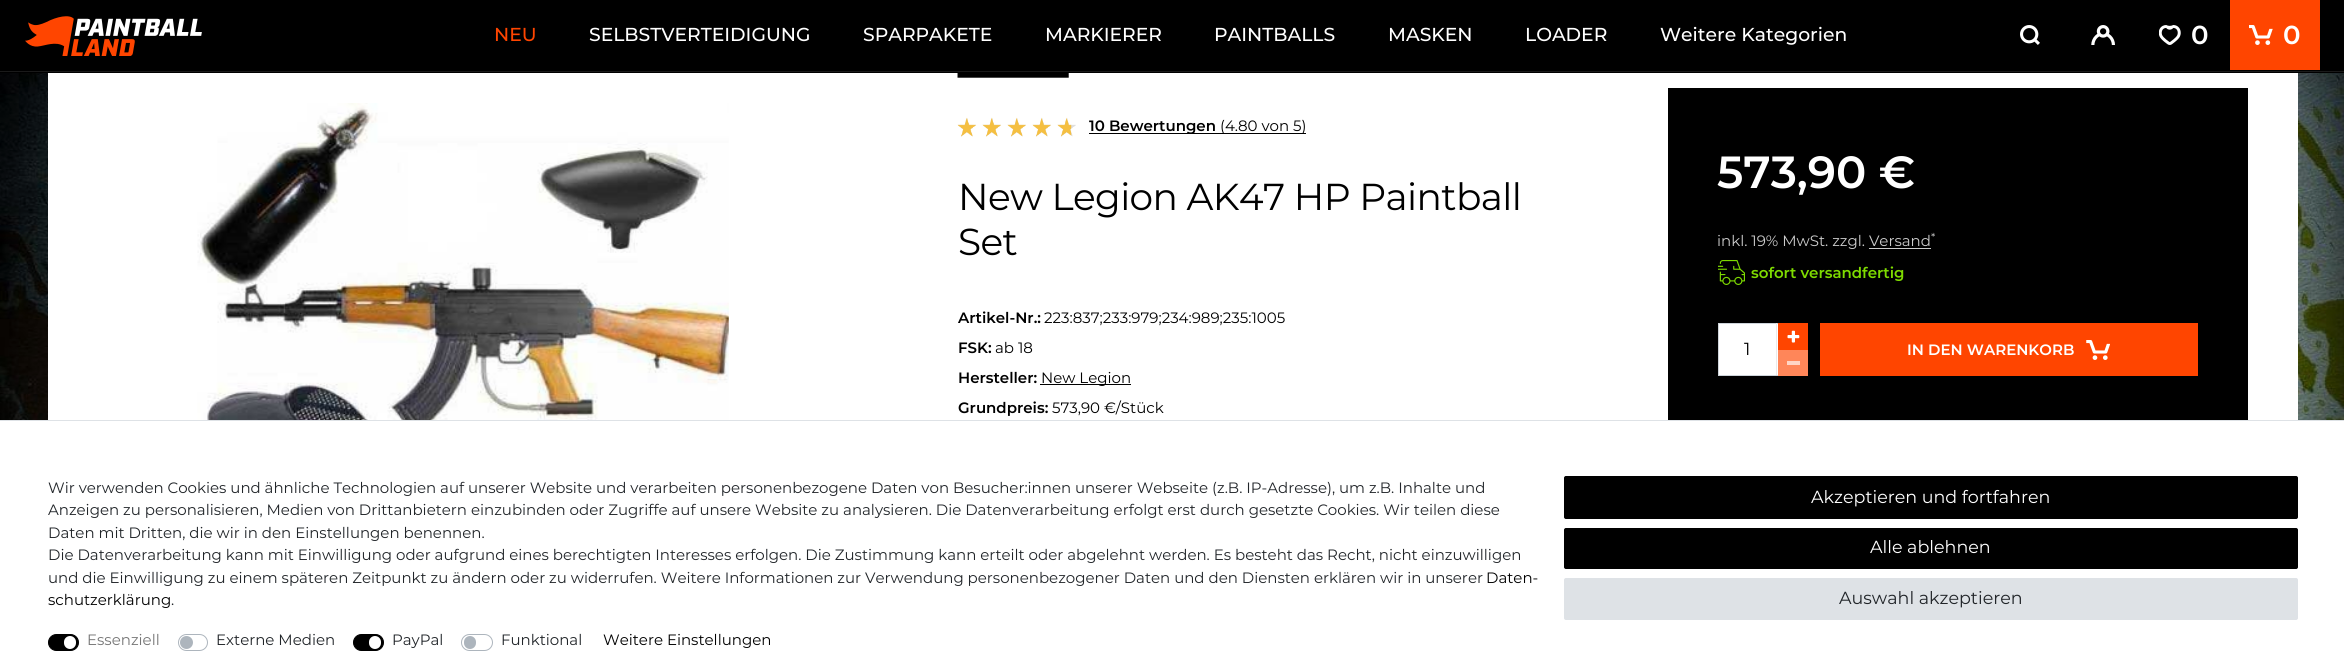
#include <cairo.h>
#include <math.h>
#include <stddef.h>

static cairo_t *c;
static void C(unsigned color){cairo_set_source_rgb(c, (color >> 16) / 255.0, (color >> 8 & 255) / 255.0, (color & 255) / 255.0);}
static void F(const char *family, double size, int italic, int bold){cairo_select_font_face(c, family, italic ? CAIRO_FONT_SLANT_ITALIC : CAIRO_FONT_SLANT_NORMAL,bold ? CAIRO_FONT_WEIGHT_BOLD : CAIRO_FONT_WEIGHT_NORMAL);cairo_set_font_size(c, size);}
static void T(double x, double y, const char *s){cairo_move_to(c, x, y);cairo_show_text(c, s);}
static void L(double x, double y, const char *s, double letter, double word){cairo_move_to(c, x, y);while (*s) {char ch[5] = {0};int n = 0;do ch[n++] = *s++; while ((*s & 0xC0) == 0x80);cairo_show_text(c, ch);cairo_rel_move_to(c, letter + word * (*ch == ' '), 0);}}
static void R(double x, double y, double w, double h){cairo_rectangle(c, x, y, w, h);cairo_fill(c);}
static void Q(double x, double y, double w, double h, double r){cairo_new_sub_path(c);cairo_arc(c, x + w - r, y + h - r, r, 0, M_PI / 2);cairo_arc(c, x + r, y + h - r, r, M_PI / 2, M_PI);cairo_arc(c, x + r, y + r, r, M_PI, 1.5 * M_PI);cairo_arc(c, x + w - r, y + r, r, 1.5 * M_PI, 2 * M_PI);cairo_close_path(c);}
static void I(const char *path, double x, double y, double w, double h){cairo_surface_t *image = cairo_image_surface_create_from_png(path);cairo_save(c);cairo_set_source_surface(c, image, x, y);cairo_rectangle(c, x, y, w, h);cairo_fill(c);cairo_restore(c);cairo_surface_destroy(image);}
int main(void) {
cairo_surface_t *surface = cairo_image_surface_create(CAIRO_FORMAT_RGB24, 2344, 672);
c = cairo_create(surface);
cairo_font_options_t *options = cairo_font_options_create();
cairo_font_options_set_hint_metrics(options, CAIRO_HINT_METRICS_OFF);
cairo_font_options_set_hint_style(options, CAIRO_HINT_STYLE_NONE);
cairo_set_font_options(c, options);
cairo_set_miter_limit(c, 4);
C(0xffffff);
cairo_paint(c);
C(0x000000);
R(0,0,2344,73);
C(0x1a1a1a);
R(0,71,2344,1);
I("1.png",25,16,177,40);
F("Montserrat Medium",18.75,0,0);
C(0xff4500);
T(494,41,"NEU");
C(0xffffff);
T(589,41,"SELBSTVERTEIDIGUNG");
T(863,41,"SPARPAKETE");
T(1045,41,"MARKIERER");
T(1214,41,"PAINTBALLS");
T(1388,41,"MASKEN");
T(1525,41,"LOADER");
T(1660,41,"Weitere Kategorien");
I("2.png",2020,25,20,20);
I("3.png",2091,25,24,20);
I("4.png",2159,25,22,20);
F("Montserrat SemiBold",26,0,0);
T(2191,44,"0");
C(0xff4500);
R(2230,0,90,70);
I("5.png",2249,25,24,20);
C(0xffffff);
T(2283,44,"0");
I("13.png",0,73,2344,347);
R(48,73,2250,347);
I("6.png",197,103,532,317);
I("7.png",957,73,112,5);
I("9.png",958,118,118,19);
I("8.png",957,117,115,20);
C(0x000000);
R(1089,133,217,1);
F("Montserrat SemiBold",15,0,0);
T(1089,131,"10 Bewertungen");
F("Montserrat",15,0,0);
T(1220,131,"(4.80 von 5)");
F("Montserrat",37.5,0,0);
L(958,210,"New Legion AK47 HP Paintball",-.6,0);
L(958,255,"Set",-.6,0);
F("Montserrat SemiBold",15,0,0);
T(958,323,"Artikel-Nr.:");
F("Montserrat",15,0,0);
T(1044,323,"223:837;233:979;234:989;235:1005");
F("Montserrat SemiBold",15,0,0);
T(958,353,"FSK:");
F("Montserrat",15,0,0);
T(995,353,"ab 18");
F("Montserrat SemiBold",15,0,0);
T(958,383,"Hersteller:");
R(1040,384,91,1);
F("Montserrat",15,0,0);
T(1041,383,"New Legion");
F("Montserrat SemiBold",15,0,0);
T(958,413,"Grundpreis:");
F("Montserrat",15,0,0);
T(1052,413,"573,90 €/Stück");
R(1668,88,580,332);
F("Montserrat SemiBold",45,0,0);
C(0xffffff);
T(1717,188,"573,90 €");
F("Montserrat",15,0,0);
C(0xcccccc);
T(1717,246,"inkl. 19% MwSt. zzgl. Versand");
F("Montserrat",11,0,0);
T(1931,241,"*");
R(1869,248,62,1);
I("10.png",1718,260,27,25);
F("Montserrat SemiBold",15,0,0);
C(0x7edb00);
T(1751,278,"sofort versandfertig");
C(0xffffff);
R(1719,324,59,51);
C(0xced4da);
R(1718,323,60,1);
C(0xeaeaea);
R(1776,323,1,53);
C(0xced4da);
R(1718,375,60,1);
R(1718,323,1,53);
F("Montserrat",17.5,0,0);
C(0x000000);
T(1744,355,"1");
C(0xff4500);
R(1778,323,30,27);
I("11.png",1787,330,13,13);
C(0xff8659);
R(1778,350,30,26);
C(0xffd5c5);
R(1787,361,13,4);
C(0xff4500);
R(1820,323,378,53);
F("Montserrat SemiBold",15,0,0);
C(0xffffff);
T(1907,355,"IN DEN WARENKORB");
I("12.png",2086,340,24,20);
C(0xdee2e6);
R(0,420,2344,1);
F("Montserrat",15,0,0);
C(0x212529);
T(48,493,"Wir verwenden Cookies und ähnliche Technologien auf unserer Website und verarbeiten personenbezogene Daten von Besucher:innen unserer Webseite (z.B. IP-Adresse), um z.B. Inhalte und");
T(48,515,"Anzeigen zu personalisieren, Medien von Drittanbietern einzubinden oder Zugriffe auf unsere Website zu analysieren. Die Datenverarbeitung erfolgt erst durch gesetzte Cookies. Wir teilen diese");
T(48,538,"Daten mit Dritten, die wir in den Einstellungen benennen.");
T(48,560,"Die Datenverarbeitung kann mit Einwilligung oder aufgrund eines berechtigten Interesses erfolgen. Die Zustimmung kann erteilt oder abgelehnt werden. Es besteht das Recht, nicht einzuwilligen");
T(48,583,"und die Einwilligung zu einem späteren Zeitpunkt zu ändern oder zu widerrufen. Weitere Informationen zur Verwendung personenbezogener Daten und den Diensten erklären wir in unserer");
C(0x000000);
T(1486,583,"Daten-");
T(48,605,"schutzerklärung");
C(0x212529);
T(171,605,".");
C(0x000000);
Q(48.5,634.5,30,16,8);
cairo_fill_preserve(c);
cairo_set_line_width(c,1);
cairo_stroke(c);
C(0x767676);
T(87,645,"Essenziell");
C(0xffffff);
Q(64,636,12,13,6);
cairo_fill(c);
Q(178.5,634.5,29,16,8);
C(0xadb5bd);
cairo_stroke(c);
C(0x212529);
T(216,645,"Externe Medien");
C(0xadb5bd);
cairo_new_path(c);
cairo_arc(c,186.5,642.5,6.5,0,2 * M_PI);
cairo_fill(c);
C(0x000000);
Q(353.5,634.5,30,16,8);
cairo_fill_preserve(c);
cairo_stroke(c);
C(0x212529);
T(392,645,"PayPal");
C(0xffffff);
Q(369,636,12,13,6);
cairo_fill(c);
Q(461.5,634.5,31,16,8);
C(0xadb5bd);
cairo_stroke(c);
C(0x212529);
T(501,645,"Funktional");
C(0xadb5bd);
Q(464,636,12,13,6);
cairo_fill(c);
C(0x000000);
T(603,645,"Weitere Einstellungen");
Q(1564.5,476.5,733,42,1.5);
cairo_fill_preserve(c);
cairo_stroke(c);
F("Montserrat",17.5,0,0);
C(0xffffff);
T(1811,503,"Akzeptieren und fortfahren");
C(0x000000);
Q(1564.5,528.5,733,40,1.5);
cairo_fill_preserve(c);
cairo_stroke(c);
C(0xffffff);
T(1870,553,"Alle ablehnen");
C(0xdee2e6);
Q(1564.5,578.5,733,41,1.5);
cairo_fill_preserve(c);
cairo_stroke(c);
C(0x212529);
T(1839,604,"Auswahl akzeptieren");
cairo_surface_write_to_png(surface, "o.png");
cairo_font_options_destroy(options);
cairo_destroy(c);
cairo_surface_destroy(surface);
return 0;
}
